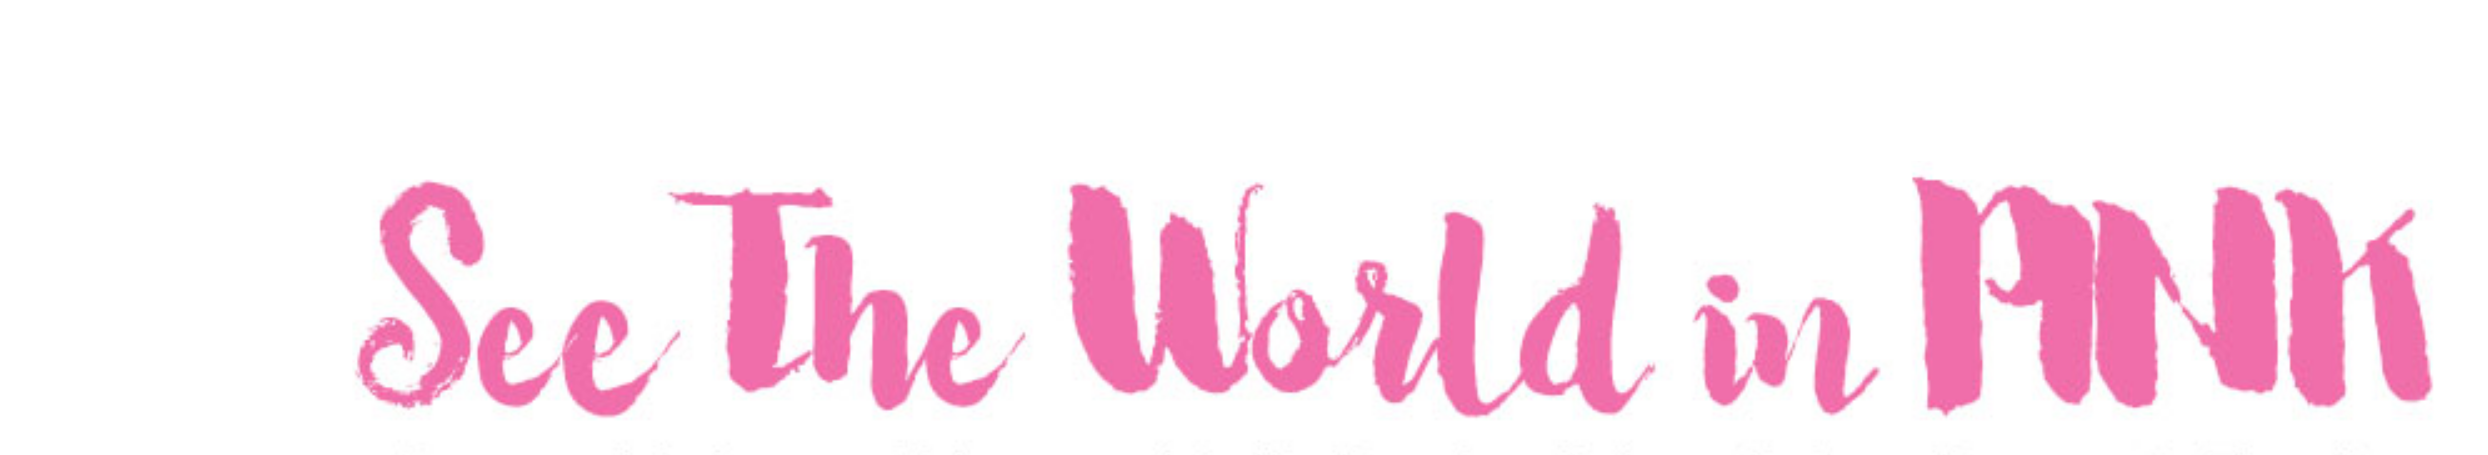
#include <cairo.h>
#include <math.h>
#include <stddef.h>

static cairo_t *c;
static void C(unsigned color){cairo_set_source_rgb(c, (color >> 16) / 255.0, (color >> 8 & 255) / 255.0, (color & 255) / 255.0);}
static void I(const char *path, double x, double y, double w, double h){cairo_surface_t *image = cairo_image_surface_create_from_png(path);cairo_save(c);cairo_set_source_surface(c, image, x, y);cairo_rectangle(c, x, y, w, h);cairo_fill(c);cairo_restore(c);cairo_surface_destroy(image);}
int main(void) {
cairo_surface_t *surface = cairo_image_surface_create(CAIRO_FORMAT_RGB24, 2488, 455);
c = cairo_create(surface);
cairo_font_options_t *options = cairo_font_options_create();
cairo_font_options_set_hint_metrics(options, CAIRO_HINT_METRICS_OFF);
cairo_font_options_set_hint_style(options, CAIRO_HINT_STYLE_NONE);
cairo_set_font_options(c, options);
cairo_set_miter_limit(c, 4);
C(0xffffff);
cairo_paint(c);
I("1.png",352,161,2082,294);
cairo_surface_write_to_png(surface, "o.png");
cairo_font_options_destroy(options);
cairo_destroy(c);
cairo_surface_destroy(surface);
return 0;
}
